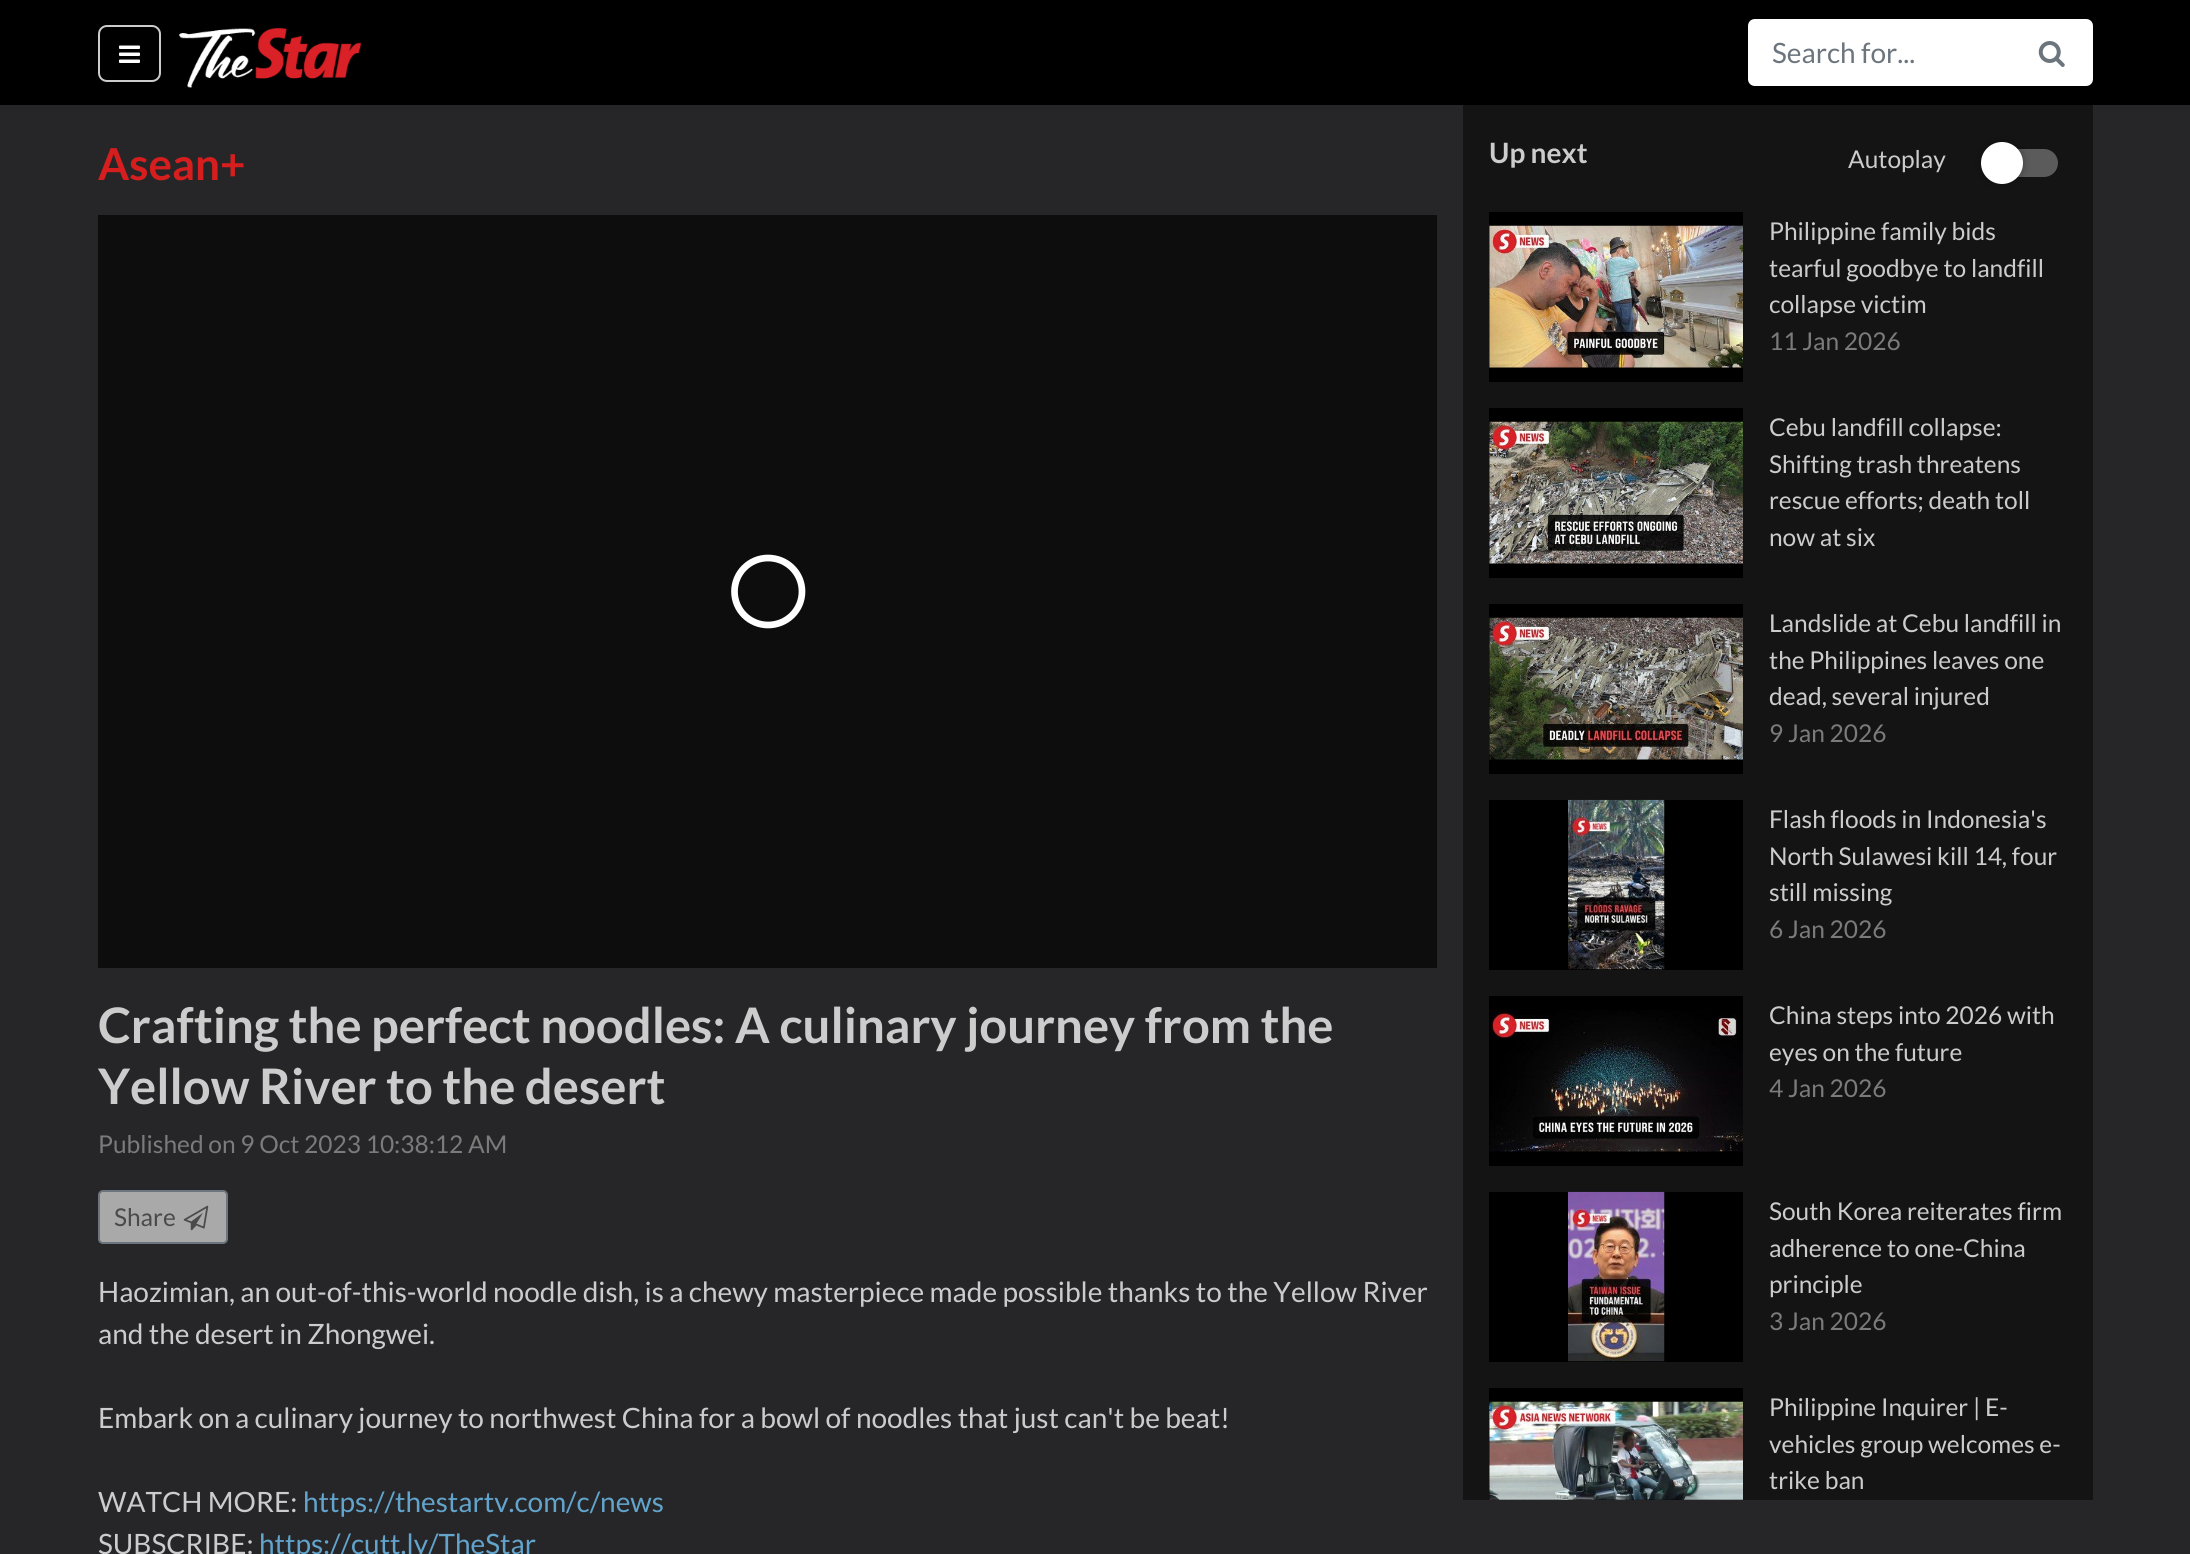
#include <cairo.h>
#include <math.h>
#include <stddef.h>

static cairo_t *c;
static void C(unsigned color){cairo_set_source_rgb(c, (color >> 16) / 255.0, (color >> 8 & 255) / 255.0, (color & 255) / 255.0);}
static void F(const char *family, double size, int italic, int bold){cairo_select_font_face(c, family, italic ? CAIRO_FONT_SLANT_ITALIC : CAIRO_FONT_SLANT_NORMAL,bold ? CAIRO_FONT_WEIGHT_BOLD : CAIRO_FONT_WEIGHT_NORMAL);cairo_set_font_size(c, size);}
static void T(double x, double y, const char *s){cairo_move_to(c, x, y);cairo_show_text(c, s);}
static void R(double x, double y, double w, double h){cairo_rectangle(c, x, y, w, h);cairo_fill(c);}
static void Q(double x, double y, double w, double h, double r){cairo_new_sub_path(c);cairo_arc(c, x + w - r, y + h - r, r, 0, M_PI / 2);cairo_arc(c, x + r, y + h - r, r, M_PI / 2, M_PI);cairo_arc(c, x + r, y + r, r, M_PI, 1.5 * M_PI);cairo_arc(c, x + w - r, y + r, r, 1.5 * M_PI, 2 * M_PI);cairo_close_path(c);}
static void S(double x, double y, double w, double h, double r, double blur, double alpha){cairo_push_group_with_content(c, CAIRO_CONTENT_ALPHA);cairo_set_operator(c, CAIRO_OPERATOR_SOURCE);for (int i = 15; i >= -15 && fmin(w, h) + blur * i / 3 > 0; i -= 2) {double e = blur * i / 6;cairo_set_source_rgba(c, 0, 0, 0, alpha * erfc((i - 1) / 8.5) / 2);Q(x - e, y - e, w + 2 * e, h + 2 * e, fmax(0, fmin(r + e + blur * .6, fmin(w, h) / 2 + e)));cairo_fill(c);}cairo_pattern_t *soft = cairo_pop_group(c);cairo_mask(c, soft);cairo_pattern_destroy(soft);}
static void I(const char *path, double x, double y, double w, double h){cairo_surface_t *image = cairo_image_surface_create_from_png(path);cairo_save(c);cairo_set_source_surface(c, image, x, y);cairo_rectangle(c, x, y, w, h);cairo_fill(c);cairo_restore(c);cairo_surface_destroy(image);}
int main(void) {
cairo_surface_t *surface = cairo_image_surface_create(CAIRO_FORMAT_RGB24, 2190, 1554);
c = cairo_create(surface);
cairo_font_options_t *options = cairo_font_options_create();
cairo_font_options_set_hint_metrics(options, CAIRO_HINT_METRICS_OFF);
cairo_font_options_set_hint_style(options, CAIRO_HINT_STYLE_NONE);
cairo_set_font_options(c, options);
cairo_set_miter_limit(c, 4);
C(0x262628);
cairo_paint(c);
C(0x000000);
R(0,0,2190,105);
Q(99,26,61,55,8);
C(0xcccccc);
cairo_stroke(c);
I("1.png",119,45,21,18);
I("2.png",179,28,183,60);
C(0xffffff);
cairo_new_path(c);
cairo_move_to(c,1755,20);
cairo_line_to(c,2010,20);
cairo_line_to(c,2010,85);
cairo_line_to(c,1755,85);
cairo_curve_to(c,1751.5,85,1749,82.5,1749,79);
cairo_line_to(c,1749,26);
cairo_curve_to(c,1749,22.5,1751.5,20,1755,20);
cairo_close_path(c);
cairo_fill_preserve(c);
cairo_stroke(c);
F("Lato",28,0,0);
C(0x6c757d);
T(1772,63,"Search for...");
C(0xffffff);
cairo_new_path(c);
cairo_move_to(c,2012,20);
cairo_line_to(c,2086,20);
cairo_curve_to(c,2089.5,20,2092,22.5,2092,26);
cairo_line_to(c,2092,79);
cairo_curve_to(c,2092,82.5,2089.5,85,2086,85);
cairo_line_to(c,2012,85);
cairo_close_path(c);
cairo_fill_preserve(c);
cairo_stroke(c);
I("3.png",2038,41,27,26);
F("Lato",44,0,1);
C(0xd71e1e);
T(98,180,"Asean+");
C(0x0d0d0d);
R(98,215,1339,753);
cairo_new_path(c);
cairo_move_to(c,734.5,591.5);
cairo_curve_to(c,734.5,573,749.5,558,768,558);
cairo_curve_to(c,787,558,802,573,802,591.5);
cairo_curve_to(c,802,610,787,625,768,625);
cairo_curve_to(c,749.5,625,734.5,610,734.5,591.5);
C(0xffffff);
cairo_set_line_width(c,6.7);
cairo_stroke(c);
F("Lato",49,0,1);
C(0xcccccc);
T(98,1043,"Crafting the perfect noodles: A culinary journey from the");
T(98,1104,"Yellow River to the desert");
F("Lato",24.5,0,0);
C(0x7c7b7b);
T(98,1153,"Published on 9 Oct 2023 10:38:12 AM");
C(0xa9a9a9);
Q(99,1191,128,52,4);
cairo_fill_preserve(c);
C(0x6c757d);
cairo_set_line_width(c,2);
cairo_stroke(c);
C(0x4a4a4a);
T(114,1226,"Share");
I("4.png",183,1205,26,26);
F("Lato",28,0,0);
C(0xcccccc);
T(98,1302,"Haozimian, an out-of-this-world noodle dish, is a chewy masterpiece made possible thanks to the Yellow River");
T(98,1344,"and the desert in Zhongwei.");
T(98,1428,"Embark on a culinary journey to northwest China for a bowl of noodles that just can't be beat!");
T(98,1512,"WATCH MORE:");
C(0x62a4cc);
T(303,1512,"https://thestartv.com/c/news");
C(0xcccccc);
T(98,1554,"SUBSCRIBE:");
C(0x62a4cc);
T(259,1554,"https://cutt.ly/TheStar");
C(0x141414);
R(1463,105,630,1395);
F("Lato",28,0,1);
C(0xcccccc);
T(1489,163,"Up next");
F("Lato",24.5,0,0);
T(1848,168,"Autoplay");
C(0x5b5b5b);
Q(1988,149,70,28,14);
cairo_fill(c);
C(0x000000);
S(1981,142,42,42,21,4.5,.3);
C(0xffffff);
cairo_arc(c,2002,163,21,0,2 * M_PI);
cairo_fill(c);
C(0x000000);
R(1489,212,254,170);
I("5.png",1489,225,254,143);
C(0xcccccc);
T(1769,240,"Philippine family bids");
T(1769,277,"tearful goodbye to landfill");
T(1769,313,"collapse victim");
C(0x7c7b7b);
T(1769,350,"11 Jan 2026");
C(0x000000);
R(1489,408,254,170);
I("6.png",1489,421,254,143);
C(0xcccccc);
T(1769,436,"Cebu landfill collapse:");
T(1769,473,"Shifting trash threatens");
T(1769,509,"rescue efforts; death toll");
T(1769,546,"now at six");
C(0x000000);
R(1489,604,254,170);
I("7.png",1489,617,254,143);
C(0xcccccc);
T(1769,632,"Landslide at Cebu landfill in");
T(1769,669,"the Philippines leaves one");
T(1769,705,"dead, several injured");
C(0x7c7b7b);
T(1769,742,"9 Jan 2026");
C(0x000000);
R(1489,800,254,170);
I("8.png",1568,799,97,171);
C(0xcccccc);
T(1769,828,"Flash floods in Indonesia's");
T(1769,865,"North Sulawesi kill 14, four");
T(1769,901,"still missing");
C(0x7c7b7b);
T(1769,938,"6 Jan 2026");
C(0x000000);
R(1489,996,254,170);
I("9.png",1489,1009,254,143);
C(0xcccccc);
T(1769,1024,"China steps into 2026 with");
T(1769,1061,"eyes on the future");
C(0x7c7b7b);
T(1769,1097,"4 Jan 2026");
C(0x000000);
R(1489,1192,254,170);
I("10.png",1568,1191,97,171);
C(0xcccccc);
T(1769,1220,"South Korea reiterates firm");
T(1769,1257,"adherence to one-China");
T(1769,1293,"principle");
C(0x7c7b7b);
T(1769,1330,"3 Jan 2026");
C(0x000000);
R(1489,1388,254,112);
I("11.png",1489,1401,254,99);
C(0xcccccc);
T(1769,1416,"Philippine Inquirer | E-");
T(1769,1453,"vehicles group welcomes e-");
T(1769,1489,"trike ban");
cairo_surface_write_to_png(surface, "o.png");
cairo_font_options_destroy(options);
cairo_destroy(c);
cairo_surface_destroy(surface);
return 0;
}
